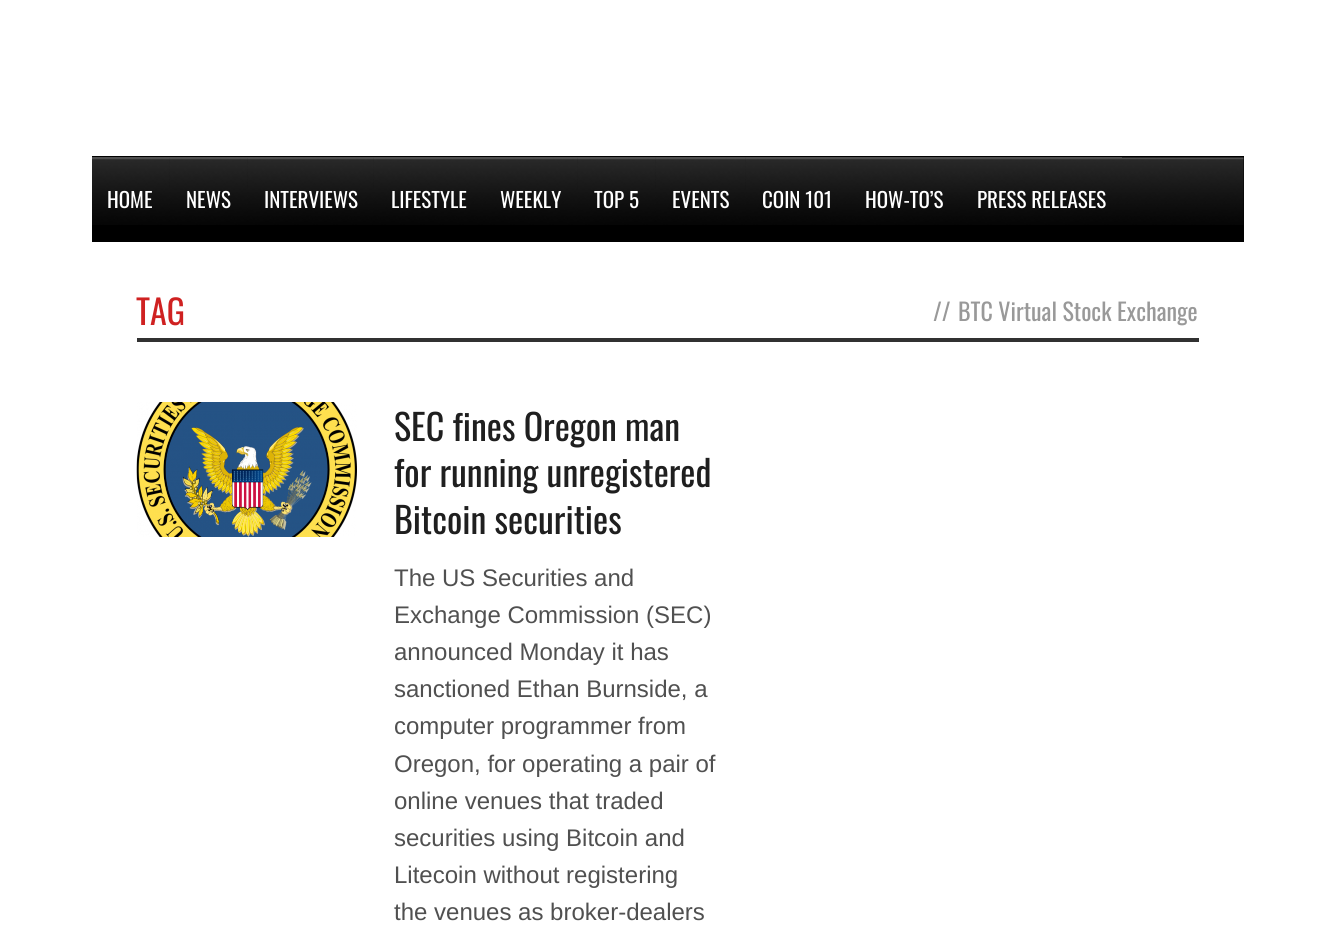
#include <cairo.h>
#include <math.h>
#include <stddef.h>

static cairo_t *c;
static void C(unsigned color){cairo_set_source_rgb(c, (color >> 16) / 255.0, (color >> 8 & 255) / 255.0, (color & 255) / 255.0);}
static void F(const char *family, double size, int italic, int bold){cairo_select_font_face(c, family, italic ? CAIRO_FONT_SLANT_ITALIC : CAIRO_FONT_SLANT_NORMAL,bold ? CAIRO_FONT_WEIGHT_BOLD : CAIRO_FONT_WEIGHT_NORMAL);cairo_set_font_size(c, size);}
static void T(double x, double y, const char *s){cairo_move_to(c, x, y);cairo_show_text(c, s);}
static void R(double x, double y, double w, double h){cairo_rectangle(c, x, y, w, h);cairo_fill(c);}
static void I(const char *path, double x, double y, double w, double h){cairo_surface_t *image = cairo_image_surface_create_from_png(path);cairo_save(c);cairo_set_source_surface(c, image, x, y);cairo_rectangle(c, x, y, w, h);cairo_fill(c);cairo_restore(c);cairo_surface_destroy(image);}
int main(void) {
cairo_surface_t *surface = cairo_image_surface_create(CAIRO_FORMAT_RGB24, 1333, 942);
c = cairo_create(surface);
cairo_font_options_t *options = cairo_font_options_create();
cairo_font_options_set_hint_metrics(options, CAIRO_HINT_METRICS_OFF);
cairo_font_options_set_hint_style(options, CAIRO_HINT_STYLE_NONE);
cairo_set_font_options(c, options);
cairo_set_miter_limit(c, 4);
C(0xffffff);
cairo_paint(c);
C(0x000000);
R(92,156,1152,86);
I("1.png",92,157,1152,68);
R(92,158,1030,67);
I("2.png",92,157,78,68);
F("Oswald",21,0,0);
C(0xffffff);
T(107,208,"HOME");
I("3.png",169,157,79,68);
T(186,208,"NEWS");
I("4.png",247,157,127,68);
T(264,208,"INTERVIEWS");
I("5.png",373,157,110,68);
T(391,208,"LIFESTYLE");
I("6.png",483,157,95,68);
T(500,208,"WEEKLY");
I("7.png",577,157,79,68);
T(594,208,"TOP 5");
I("8.png",655,157,91,68);
T(672,208,"EVENTS");
I("9.png",745,157,104,68);
T(762,208,"COIN 101");
I("10.png",849,157,111,68);
T(865,208,"HOW-TO’S");
I("11.png",960,157,162,68);
T(977,208,"PRESS RELEASES");
C(0x313131);
R(137,338,1062,4);
F("Oswald",34,0,0);
C(0xcf2121);
T(136,325,"TAG");
F("Oswald",24,0,0);
C(0x999999);
T(933,321,"//");
T(958,321,"BTC Virtual Stock Exchange");
I("12.png",136,402,221,135);
F("Oswald",36,0,0);
C(0x1f1f1f);
T(394,441,"SEC fines Oregon man");
T(394,487,"for running unregistered");
T(394,534,"Bitcoin securities");
F("Liberation Sans",24,0,0);
C(0x505050);
T(394,586,"The US Securities and");
T(394,623,"Exchange Commission (SEC)");
T(394,660,"announced Monday it has");
T(394,697,"sanctioned Ethan Burnside, a");
T(394,734,"computer programmer from");
T(394,772,"Oregon, for operating a pair of");
T(394,809,"online venues that traded");
T(394,846,"securities using Bitcoin and");
T(394,883,"Litecoin without registering");
T(394,920,"the venues as broker-dealers");
cairo_surface_write_to_png(surface, "o.png");
cairo_font_options_destroy(options);
cairo_destroy(c);
cairo_surface_destroy(surface);
return 0;
}
